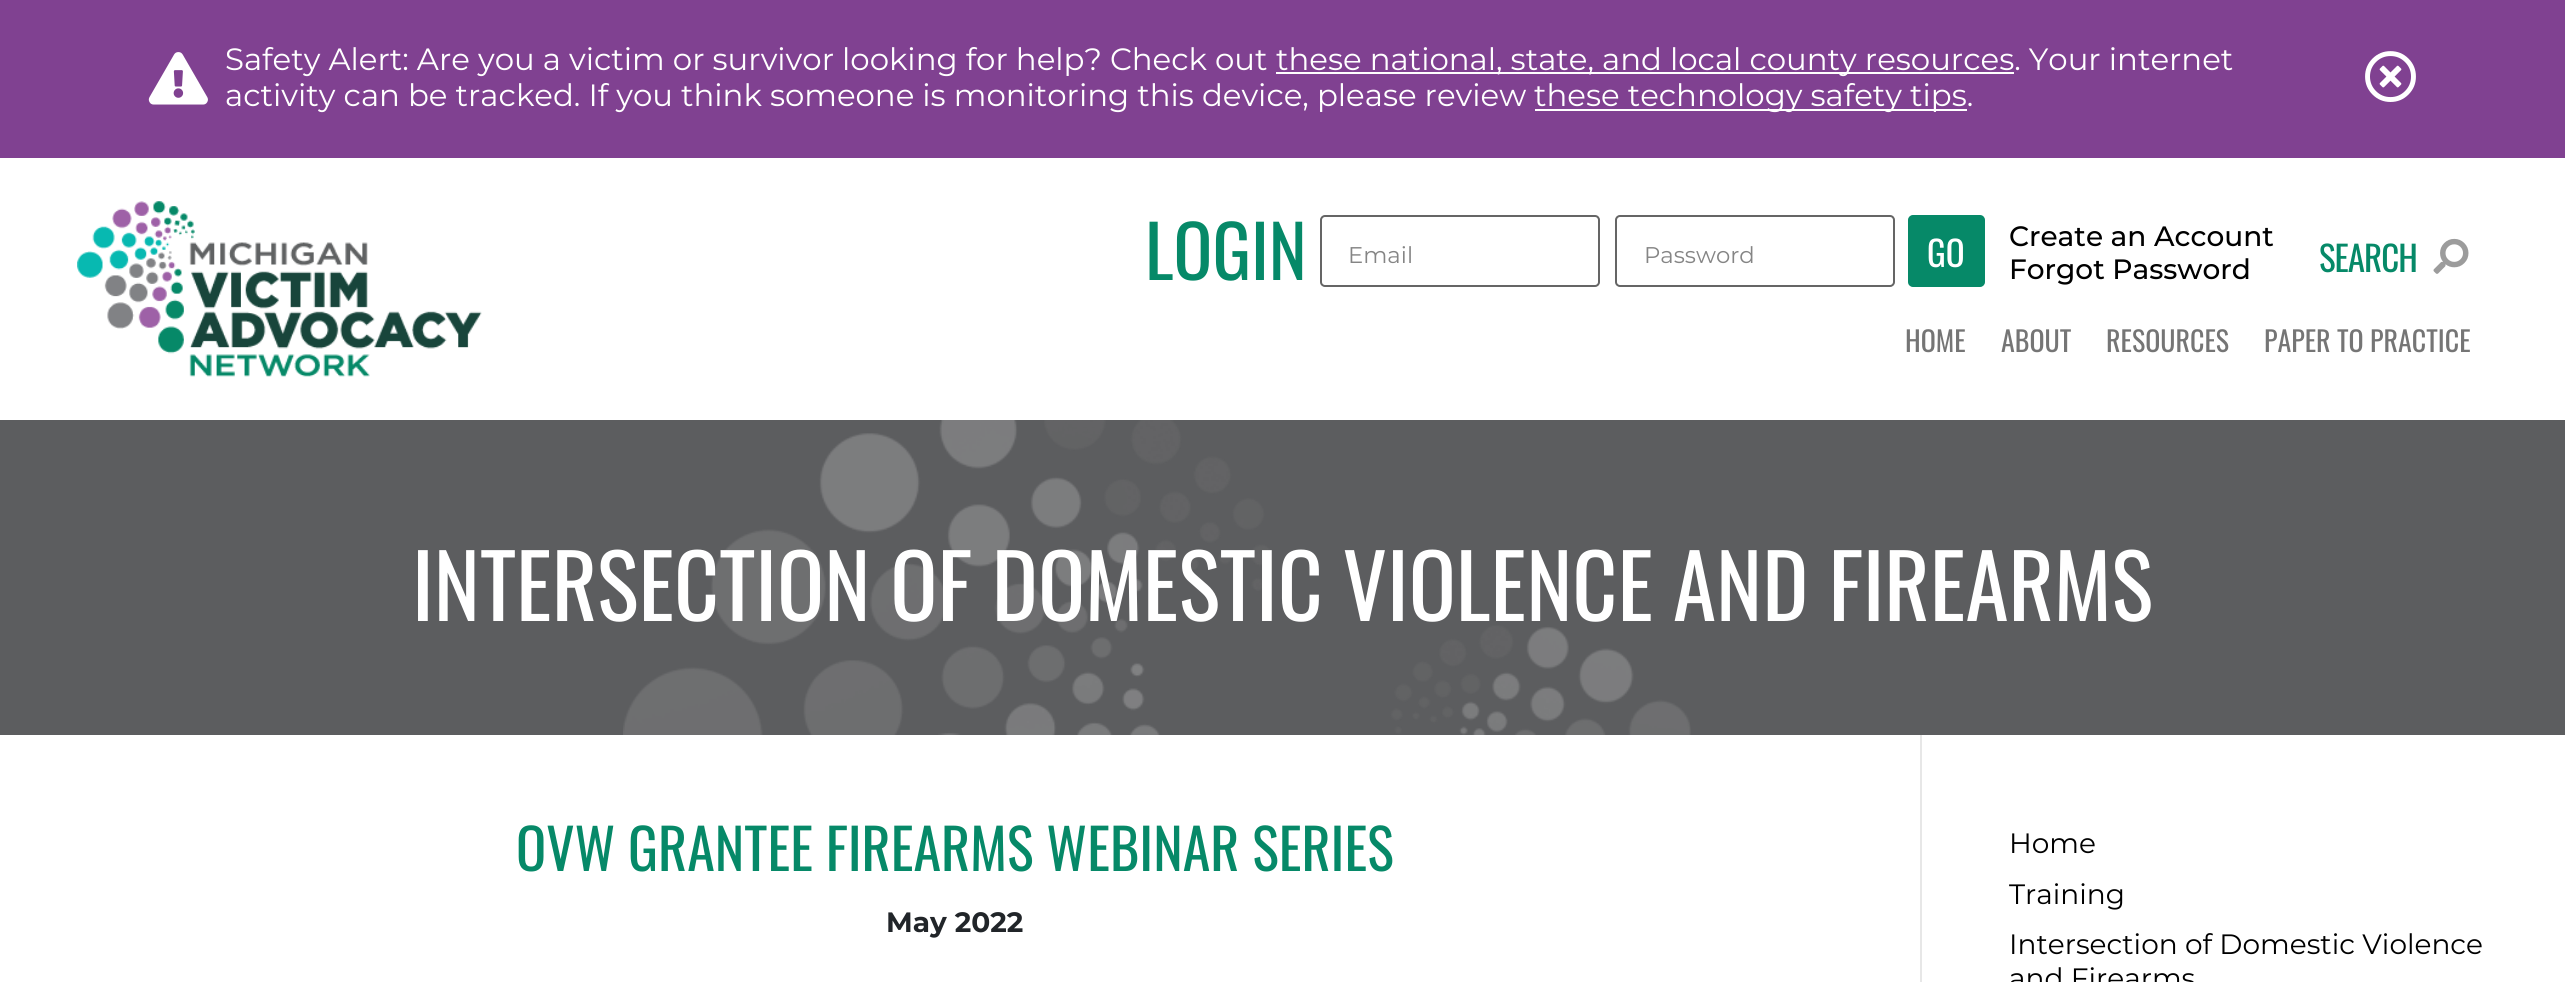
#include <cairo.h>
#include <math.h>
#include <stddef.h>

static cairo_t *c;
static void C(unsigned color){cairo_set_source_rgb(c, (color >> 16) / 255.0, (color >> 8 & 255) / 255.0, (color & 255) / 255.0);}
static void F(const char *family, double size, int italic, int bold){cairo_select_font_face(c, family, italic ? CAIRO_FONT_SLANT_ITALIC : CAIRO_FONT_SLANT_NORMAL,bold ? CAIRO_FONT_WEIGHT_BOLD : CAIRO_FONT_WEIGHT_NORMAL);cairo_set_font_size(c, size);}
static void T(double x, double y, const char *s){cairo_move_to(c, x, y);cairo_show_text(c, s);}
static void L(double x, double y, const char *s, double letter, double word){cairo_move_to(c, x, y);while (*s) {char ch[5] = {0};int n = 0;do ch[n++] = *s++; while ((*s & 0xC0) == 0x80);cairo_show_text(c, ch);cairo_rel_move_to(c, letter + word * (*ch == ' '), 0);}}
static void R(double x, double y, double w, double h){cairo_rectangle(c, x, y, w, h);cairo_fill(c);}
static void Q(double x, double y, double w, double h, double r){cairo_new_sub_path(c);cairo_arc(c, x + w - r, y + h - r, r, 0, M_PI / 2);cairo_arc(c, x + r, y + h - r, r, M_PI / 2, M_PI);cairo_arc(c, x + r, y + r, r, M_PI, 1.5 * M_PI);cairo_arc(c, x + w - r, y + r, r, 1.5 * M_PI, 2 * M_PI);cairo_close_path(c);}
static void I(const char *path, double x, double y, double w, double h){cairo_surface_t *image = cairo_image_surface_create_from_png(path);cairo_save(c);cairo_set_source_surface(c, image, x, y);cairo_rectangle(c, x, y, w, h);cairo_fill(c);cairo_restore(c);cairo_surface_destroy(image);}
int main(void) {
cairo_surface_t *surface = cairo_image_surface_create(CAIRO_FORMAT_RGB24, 2565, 982);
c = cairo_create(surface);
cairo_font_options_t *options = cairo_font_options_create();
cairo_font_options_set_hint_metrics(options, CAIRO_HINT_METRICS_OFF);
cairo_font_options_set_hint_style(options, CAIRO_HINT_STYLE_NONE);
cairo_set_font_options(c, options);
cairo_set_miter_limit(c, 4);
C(0x804191);
cairo_paint(c);
I("1.png",148,52,60,53);
F("Montserrat",30.8,0,0);
C(0xffffff);
T(225,70,"Safety Alert: Are you a victim or survivor looking for help? Check out");
R(1276,72,738,2);
T(1276,70,"these national, state, and local county resources. Your internet");
T(225,106,"activity can be tracked. If you think someone is monitoring this device, please review");
R(1535,109,432,2);
T(1534,106,"these technology safety tips.");
I("2.png",2365,51,51,51);
R(0,158,2565,824);
I("3.png",77,201,405,176);
F("Oswald",72,0,0);
C(0x068968);
T(1145,280,"LOGIN");
Q(1321,216,278,70,4);
C(0x656565);
cairo_stroke(c);
F("Montserrat",22.75,0,0);
C(0x858585);
T(1348,263,"Email");
Q(1616,216,278,70,4);
C(0x656565);
cairo_stroke(c);
C(0x858585);
T(1644,263,"Password");
C(0x068968);
Q(1909,216,75,70,4);
cairo_fill_preserve(c);
cairo_stroke(c);
F("Oswald",35,0,0);
C(0xffffff);
T(1927,267,"GO");
F("Montserrat Medium",28,0,0);
C(0x000000);
T(2009,246,"Create an Account");
T(2009,279,"Forgot Password");
F("Oswald",35,0,0);
C(0x068968);
L(2319,272,"SEARCH",-1,0);
I("4.png",2433,238,36,36);
F("Oswald",28,0,0);
C(0x757575);
T(1905,352,"HOME");
T(2001,352,"ABOUT");
T(2106,352,"RESOURCES");
T(2264,352,"PAPER TO PRACTICE");
C(0x5c5d5f);
R(0,420,2565,315);
I("5.png",623,420,1068,315);
F("Oswald",87.5,0,0);
C(0xffffff);
T(412,621,"INTERSECTION OF DOMESTIC VIOLENCE AND FIREARMS");
F("Oswald",56,0,0);
C(0x068968);
T(516,871,"OVW GRANTEE FIREARMS WEBINAR SERIES");
F("Montserrat",28,0,1);
C(0x212529);
T(886,932,"May 2022");
C(0xe7e7e7);
R(1920,735,2,247);
F("Montserrat",28,0,0);
C(0x000000);
T(2009,853,"Home");
T(2009,904,"Training");
T(2009,954,"Intersection of Domestic Violence");
T(2009,988,"and Firearms");
cairo_surface_write_to_png(surface, "o.png");
cairo_font_options_destroy(options);
cairo_destroy(c);
cairo_surface_destroy(surface);
return 0;
}
